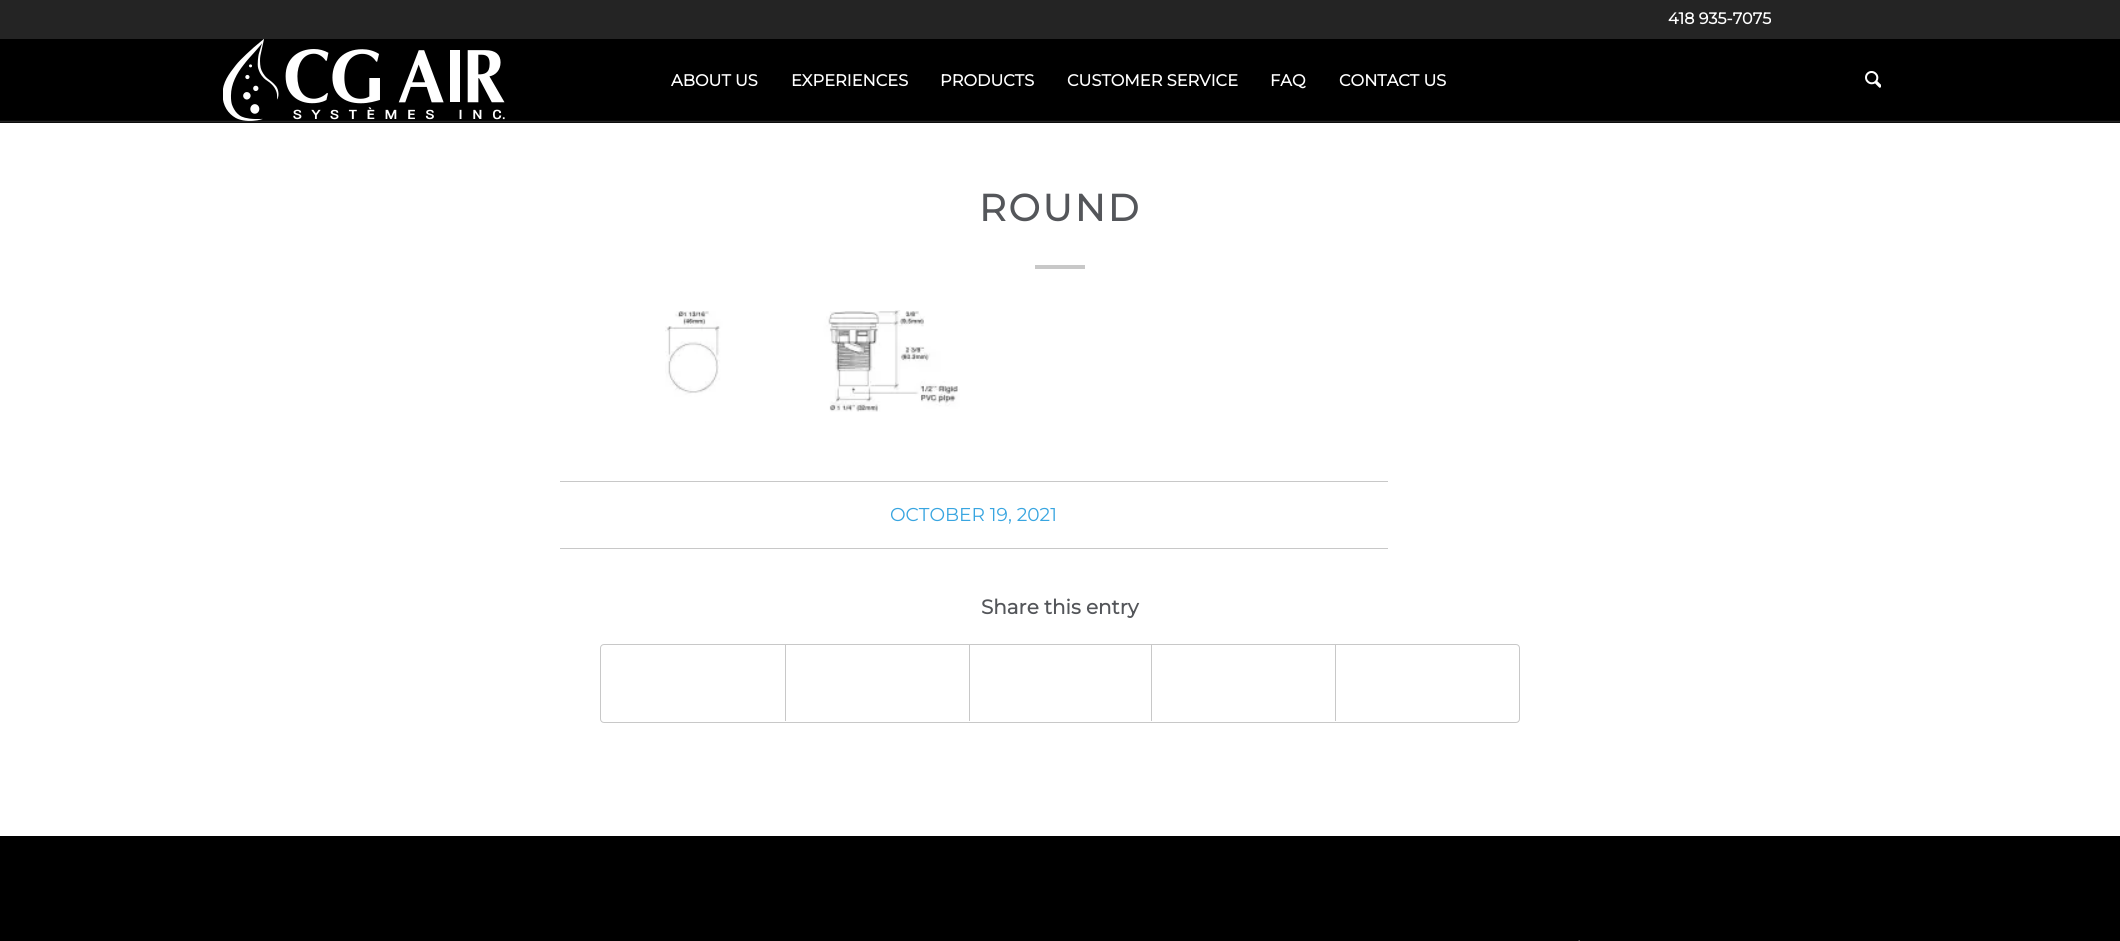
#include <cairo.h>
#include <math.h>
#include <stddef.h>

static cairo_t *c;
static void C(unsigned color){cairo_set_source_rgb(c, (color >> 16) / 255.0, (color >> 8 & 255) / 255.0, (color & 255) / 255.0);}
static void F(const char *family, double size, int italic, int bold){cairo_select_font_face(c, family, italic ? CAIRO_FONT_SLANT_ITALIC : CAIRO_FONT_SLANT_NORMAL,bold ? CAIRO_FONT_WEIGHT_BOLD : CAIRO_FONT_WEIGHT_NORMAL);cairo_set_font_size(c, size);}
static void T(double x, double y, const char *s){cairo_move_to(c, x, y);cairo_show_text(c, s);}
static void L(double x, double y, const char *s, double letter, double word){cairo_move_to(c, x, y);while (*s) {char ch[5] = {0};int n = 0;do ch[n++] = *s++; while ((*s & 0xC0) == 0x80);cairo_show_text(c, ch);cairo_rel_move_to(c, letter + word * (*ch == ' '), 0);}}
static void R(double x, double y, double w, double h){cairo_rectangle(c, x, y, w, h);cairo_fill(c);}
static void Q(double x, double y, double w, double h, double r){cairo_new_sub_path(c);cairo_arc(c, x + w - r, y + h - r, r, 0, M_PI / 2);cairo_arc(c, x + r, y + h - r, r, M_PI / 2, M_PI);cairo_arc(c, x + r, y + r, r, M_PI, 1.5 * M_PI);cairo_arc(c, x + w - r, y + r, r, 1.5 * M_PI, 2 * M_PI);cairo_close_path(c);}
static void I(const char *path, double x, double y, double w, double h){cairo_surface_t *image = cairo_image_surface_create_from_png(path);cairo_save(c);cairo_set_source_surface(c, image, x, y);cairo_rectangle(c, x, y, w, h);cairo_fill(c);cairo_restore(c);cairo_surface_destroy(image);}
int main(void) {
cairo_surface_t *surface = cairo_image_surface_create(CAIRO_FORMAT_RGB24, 2120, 941);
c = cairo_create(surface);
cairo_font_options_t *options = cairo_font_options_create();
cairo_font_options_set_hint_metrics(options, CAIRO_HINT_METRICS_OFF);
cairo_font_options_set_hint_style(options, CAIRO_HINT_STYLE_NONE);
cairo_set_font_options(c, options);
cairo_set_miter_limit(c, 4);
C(0x000000);
cairo_paint(c);
C(0x242424);
R(0,0,2120,39);
F("Montserrat",16,0,1);
C(0xffffff);
T(1668,24,"418 935-7075");
C(0x242424);
R(0,121,2120,1);
C(0x0a0a0a);
R(0,120,2120,1);
I("1.png",223,39,282,82);
F("Montserrat",16.25,0,1);
C(0xffffff);
T(671,86,"ABOUT US");
T(791,86,"EXPERIENCES");
T(940,86,"PRODUCTS");
T(1067,86,"CUSTOMER SERVICE");
T(1270,86,"FAQ");
T(1339,86,"CONTACT US");
I("2.png",1865,71,16,17);
R(0,123,2120,713);
C(0x0d0d0d);
R(0,122,2120,1);
F("Montserrat",37.5,0,1);
C(0x54565a);
L(979,221,"ROUND",2.5,0);
C(0xc8c8c8);
R(1035,265,50,4);
I("3.png",665,310,295,102);
R(560,481,828,1);
R(560,548,828,1);
F("Montserrat Thin",18.6,0,0);
C(0x38a5e0);
T(890,521,"OCTOBER 19, 2021");
F("Montserrat",20,0,1);
C(0x54565a);
T(981,614,"Share this entry");
Q(600.5,644.5,919,78,3.5);
C(0xc8c8c8);
cairo_set_line_width(c,1);
cairo_stroke(c);
R(785,645,1,76);
R(969,645,1,76);
R(1151,645,1,76);
R(1335,645,1,76);
I("4.png",1578,940,2,1);
cairo_surface_write_to_png(surface, "o.png");
cairo_font_options_destroy(options);
cairo_destroy(c);
cairo_surface_destroy(surface);
return 0;
}
